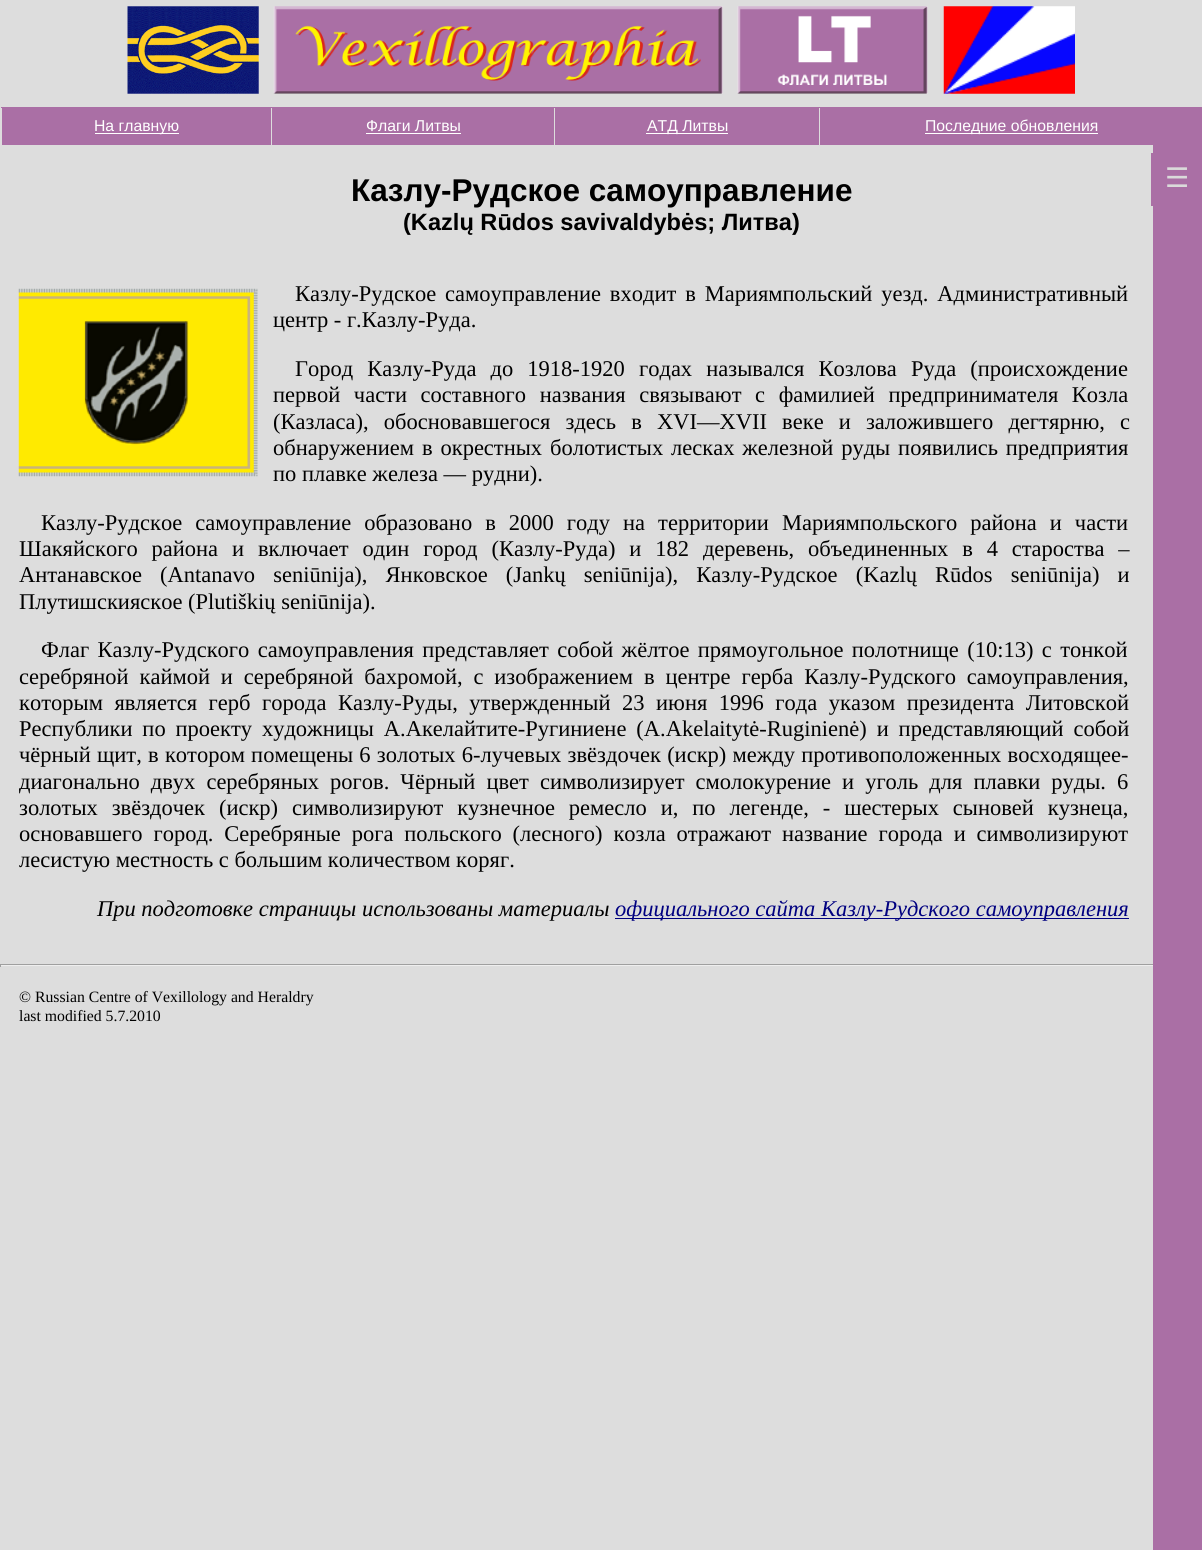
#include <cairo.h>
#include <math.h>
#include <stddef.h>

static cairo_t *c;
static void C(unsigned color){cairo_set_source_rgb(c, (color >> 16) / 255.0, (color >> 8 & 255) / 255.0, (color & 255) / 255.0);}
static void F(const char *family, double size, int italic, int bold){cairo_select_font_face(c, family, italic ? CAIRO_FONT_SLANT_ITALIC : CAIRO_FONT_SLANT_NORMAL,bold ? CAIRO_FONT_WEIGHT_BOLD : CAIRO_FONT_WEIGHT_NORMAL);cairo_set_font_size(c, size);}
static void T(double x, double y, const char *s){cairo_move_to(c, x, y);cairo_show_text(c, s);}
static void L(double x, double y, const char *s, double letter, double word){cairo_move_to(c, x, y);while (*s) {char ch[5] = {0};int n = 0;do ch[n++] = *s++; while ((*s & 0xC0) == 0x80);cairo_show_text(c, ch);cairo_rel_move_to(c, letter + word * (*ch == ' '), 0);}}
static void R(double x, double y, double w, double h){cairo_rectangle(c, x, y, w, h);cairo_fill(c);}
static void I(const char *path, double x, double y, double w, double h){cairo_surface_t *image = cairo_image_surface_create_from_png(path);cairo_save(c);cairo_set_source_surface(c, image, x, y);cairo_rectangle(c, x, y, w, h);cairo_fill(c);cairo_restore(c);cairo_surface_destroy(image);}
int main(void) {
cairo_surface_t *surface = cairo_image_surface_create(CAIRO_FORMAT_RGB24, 1202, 1550);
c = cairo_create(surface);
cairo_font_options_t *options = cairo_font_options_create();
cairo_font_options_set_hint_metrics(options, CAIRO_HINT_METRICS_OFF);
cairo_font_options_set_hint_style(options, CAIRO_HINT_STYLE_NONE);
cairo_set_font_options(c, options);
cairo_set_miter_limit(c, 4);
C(0xdddddd);
cairo_paint(c);
I("1.png",127,6,132,88);
I("2.png",273,6,450,88);
I("3.png",737,6,191,88);
I("4.png",943,6,132,88);
C(0xaa6fa5);
R(1,107,1201,38);
C(0xdddddd);
R(1,108,1,37);
C(0xffffff);
R(95,133,84,1);
F("Liberation Sans",15.75,0,0);
T(94,131,"На главную");
C(0xdddddd);
R(271,108,1,37);
C(0xffffff);
T(366,131,"Флаги Литвы");
R(366,133,95,1);
C(0xdddddd);
R(554,108,1,37);
C(0xffffff);
R(646,133,82,1);
T(647,131,"АТД Литвы");
C(0xdddddd);
R(819,108,1,37);
C(0xffffff);
R(925,133,173,1);
T(925,131,"Последние обновления");
C(0xaa6fa5);
R(1153,145,49,1405);
R(1151,153,2,53);
F("DejaVu Sans",27,0,0);
C(0xdadada);
T(1165,187,"☰");
F("Liberation Sans",31.5,0,1);
C(0x000000);
T(351,201,"Казлу-Рудское самоуправление");
F("Liberation Sans",23.6,0,1);
T(403,230,"(Kazlų Rūdos savivaldybės; Литва)");
I("5.png",18,288,240,189);
F("Liberation Serif",22.5,0,0);
L(295,301,"Казлу-Рудское самоуправление входит в Мариямпольский уезд. Административный",0,3.25);
T(273,327,"центр - г.Казлу-Руда.");
L(295,376,"Город Казлу-Руда до 1918-1920 годах назывался Козлова Руда (происхождение",0,8.5);
L(273,402,"первой части составного названия связывают с фамилией предпринимателя Козла",0,8);
L(273,429,"(Казласа), обосновавшегося здесь в XVI—XVII веке и заложившего дегтярню, с",0,9.5);
L(273,455,"обнаружением в окрестных болотистых лесках железной руды появились предприятия",0,2.25);
T(273,481,"по плавке железа — рудни).");
L(41,530,"Казлу-Рудское самоуправление образовано в 2000 году на территории Мариямпольского района и части",0,7.4);
L(19,556,"Шакяйского района и включает один город (Казлу-Руда) и 182 деревень, объединенных в 4 староства –",0,8.25);
L(19,582,"Антанавское (Antanavo seniūnija), Янковское (Jankų seniūnija), Казлу-Рудское (Kazlų Rūdos seniūnija) и",0,12.5);
T(19,609,"Плутишскияское (Plutiškių seniūnija).");
L(41,657,"Флаг Казлу-Рудского самоуправления представляет собой жёлтое прямоугольное полотнище (10:13) с тонкой",0,2.75);
L(19,684,"серебряной каймой и серебряной бахромой, с изображением в центре герба Казлу-Рудского самоуправления,",0,5.25);
L(19,710,"которым является герб города Казлу-Руды, утвержденный 23 июня 1996 года указом президента Литовской",0,5.9);
L(19,736,"Республики по проекту художницы А.Акелайтите-Ругиниене (А.Akelaitytė-Ruginienė) и представляющий собой",0,4.25);
L(19,762,"чёрный щит, в котором помещены 6 золотых 6-лучевых звёздочек (искр) между противоположенных восходящее-",0,.6);
L(19,789,"диагонально двух серебряных рогов. Чёрный цвет символизирует смолокурение и уголь для плавки руды. 6",0,5.4);
L(19,815,"золотых звёздочек (искр) символизируют кузнечное ремесло и, по легенде, - шестерых сыновей кузнеца,",0,8.25);
L(19,841,"основавшего город. Серебряные рога польского (лесного) козла отражают название города и символизируют",0,5.25);
T(19,867,"лесистую местность с большим количеством коряг.");
F("Liberation Serif",22.5,1,0);
T(97,916,"При подготовке страницы использованы материалы");
C(0x000080);
R(615,918,514,1);
T(615,916,"официального сайта Казлу-Рудского самоуправления");
C(0x9f9f9f);
R(0,964,1153,1);
C(0xeeeeee);
R(0,965,1153,1);
C(0x9f9f9f);
R(0,964,1,3);
F("Liberation Serif",15.75,0,0);
C(0x000000);
T(19,1002,"© Russian Centre of Vexillology and Heraldry");
T(19,1021,"last modified 5.7.2010");
cairo_surface_write_to_png(surface, "o.png");
cairo_font_options_destroy(options);
cairo_destroy(c);
cairo_surface_destroy(surface);
return 0;
}
